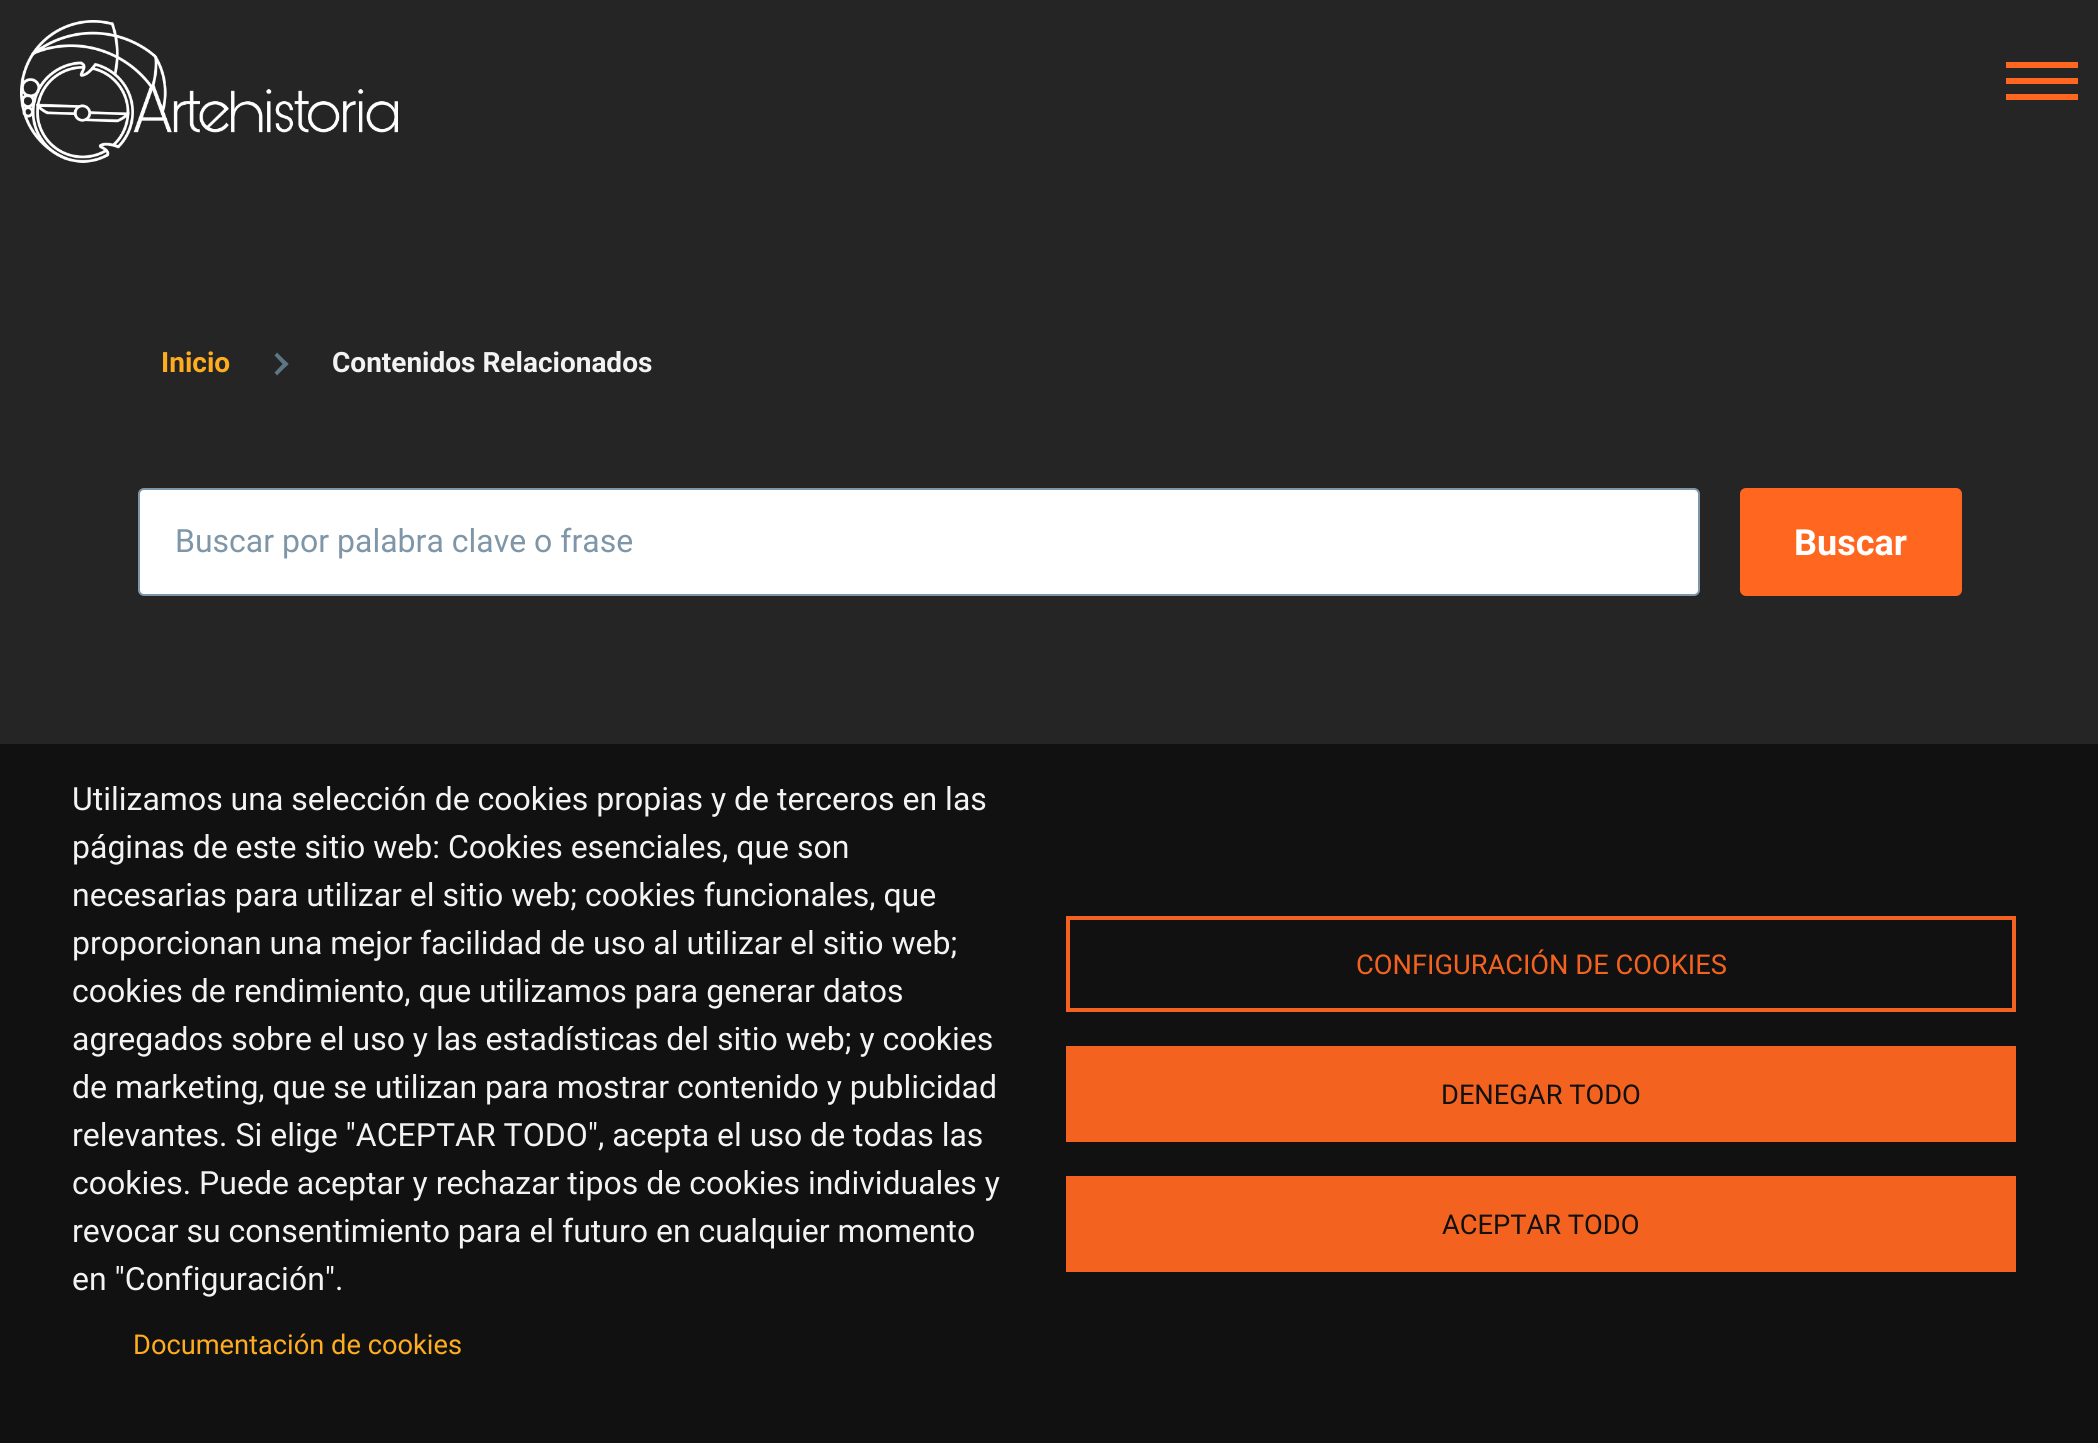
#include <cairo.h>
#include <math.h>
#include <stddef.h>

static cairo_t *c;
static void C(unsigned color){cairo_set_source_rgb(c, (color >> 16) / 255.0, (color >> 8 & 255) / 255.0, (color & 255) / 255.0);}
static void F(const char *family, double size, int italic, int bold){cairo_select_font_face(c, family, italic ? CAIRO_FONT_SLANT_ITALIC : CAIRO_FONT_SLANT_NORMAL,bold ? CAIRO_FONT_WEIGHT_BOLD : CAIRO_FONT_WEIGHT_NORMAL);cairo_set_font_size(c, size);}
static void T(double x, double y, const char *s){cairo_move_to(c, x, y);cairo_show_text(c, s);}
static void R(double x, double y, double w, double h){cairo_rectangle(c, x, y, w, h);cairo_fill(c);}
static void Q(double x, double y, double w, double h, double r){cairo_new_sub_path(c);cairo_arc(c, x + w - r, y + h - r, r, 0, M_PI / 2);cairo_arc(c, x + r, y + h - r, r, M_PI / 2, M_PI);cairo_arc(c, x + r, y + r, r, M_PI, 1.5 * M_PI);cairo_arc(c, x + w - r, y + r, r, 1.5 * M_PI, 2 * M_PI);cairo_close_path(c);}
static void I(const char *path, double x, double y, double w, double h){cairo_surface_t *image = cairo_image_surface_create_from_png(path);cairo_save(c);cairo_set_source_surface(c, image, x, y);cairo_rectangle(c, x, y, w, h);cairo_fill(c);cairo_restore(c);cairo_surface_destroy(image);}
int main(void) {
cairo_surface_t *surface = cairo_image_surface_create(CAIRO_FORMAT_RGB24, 2098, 1443);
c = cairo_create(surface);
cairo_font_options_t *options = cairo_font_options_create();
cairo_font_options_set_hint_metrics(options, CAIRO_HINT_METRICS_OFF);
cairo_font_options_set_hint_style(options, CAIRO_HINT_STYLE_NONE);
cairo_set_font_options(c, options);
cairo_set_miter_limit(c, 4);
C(0x252525);
cairo_paint(c);
I("1.png",20,20,378,143);
C(0xff6720);
R(2006,78,72,6);
R(2006,62,72,6);
R(2006,94,72,6);
F("Roboto",28,0,1);
C(0xffad20);
T(161,372,"Inicio");
C(0x5d7585);
cairo_new_path(c);
cairo_move_to(c,277,352.5);
cairo_line_to(c,288.5,364);
cairo_line_to(c,285.5,367);
cairo_line_to(c,274.5,355.5);
cairo_close_path(c);
cairo_fill(c);
cairo_new_path(c);
cairo_move_to(c,285.5,361);
cairo_line_to(c,288.5,364);
cairo_line_to(c,277,375.5);
cairo_line_to(c,274.5,372.5);
cairo_close_path(c);
cairo_fill(c);
C(0xf3f3f3);
T(332,372,"Contenidos Relacionados");
C(0xffffff);
Q(139,489,1560,106,5);
cairo_fill_preserve(c);
C(0x7e96a7);
cairo_stroke(c);
F("Roboto",32,0,0);
T(175,552,"Buscar por palabra clave o frase");
C(0xff6720);
Q(1740,488,222,108,6);
cairo_fill(c);
F("Roboto",36,0,1);
C(0xffffff);
T(1794,555,"Buscar");
C(0x111111);
R(0,744,2098,699);
F("Roboto",32,0,0);
C(0xf3f3f3);
T(72,810,"Utilizamos una selección de cookies propias y de terceros en las");
T(72,858,"páginas de este sitio web: Cookies esenciales, que son");
T(72,906,"necesarias para utilizar el sitio web; cookies funcionales, que");
T(72,954,"proporcionan una mejor facilidad de uso al utilizar el sitio web;");
T(72,1002,"cookies de rendimiento, que utilizamos para generar datos");
T(72,1050,"agregados sobre el uso y las estadísticas del sitio web; y cookies");
T(72,1098,"de marketing, que se utilizan para mostrar contenido y publicidad");
T(72,1146,"relevantes. Si elige \"ACEPTAR TODO\", acepta el uso de todas las");
T(72,1194,"cookies. Puede aceptar y rechazar tipos de cookies individuales y");
T(72,1242,"revocar su consentimiento para el futuro en cualquier momento");
T(72,1290,"en \"Configuración\".");
F("Roboto",27.25,0,0);
C(0xffad20);
T(133,1354,"Documentación de cookies");
cairo_rectangle(c,1068,918,946,92);
C(0xf3631f);
cairo_set_line_width(c,4);
cairo_stroke(c);
T(1356,974,"CONFIGURACIÓN DE COOKIES");
R(1066,1046,950,96);
C(0x111111);
T(1441,1104,"DENEGAR TODO");
C(0xf3631f);
R(1066,1176,950,96);
C(0x111111);
T(1442,1234,"ACEPTAR TODO");
cairo_surface_write_to_png(surface, "o.png");
cairo_font_options_destroy(options);
cairo_destroy(c);
cairo_surface_destroy(surface);
return 0;
}
